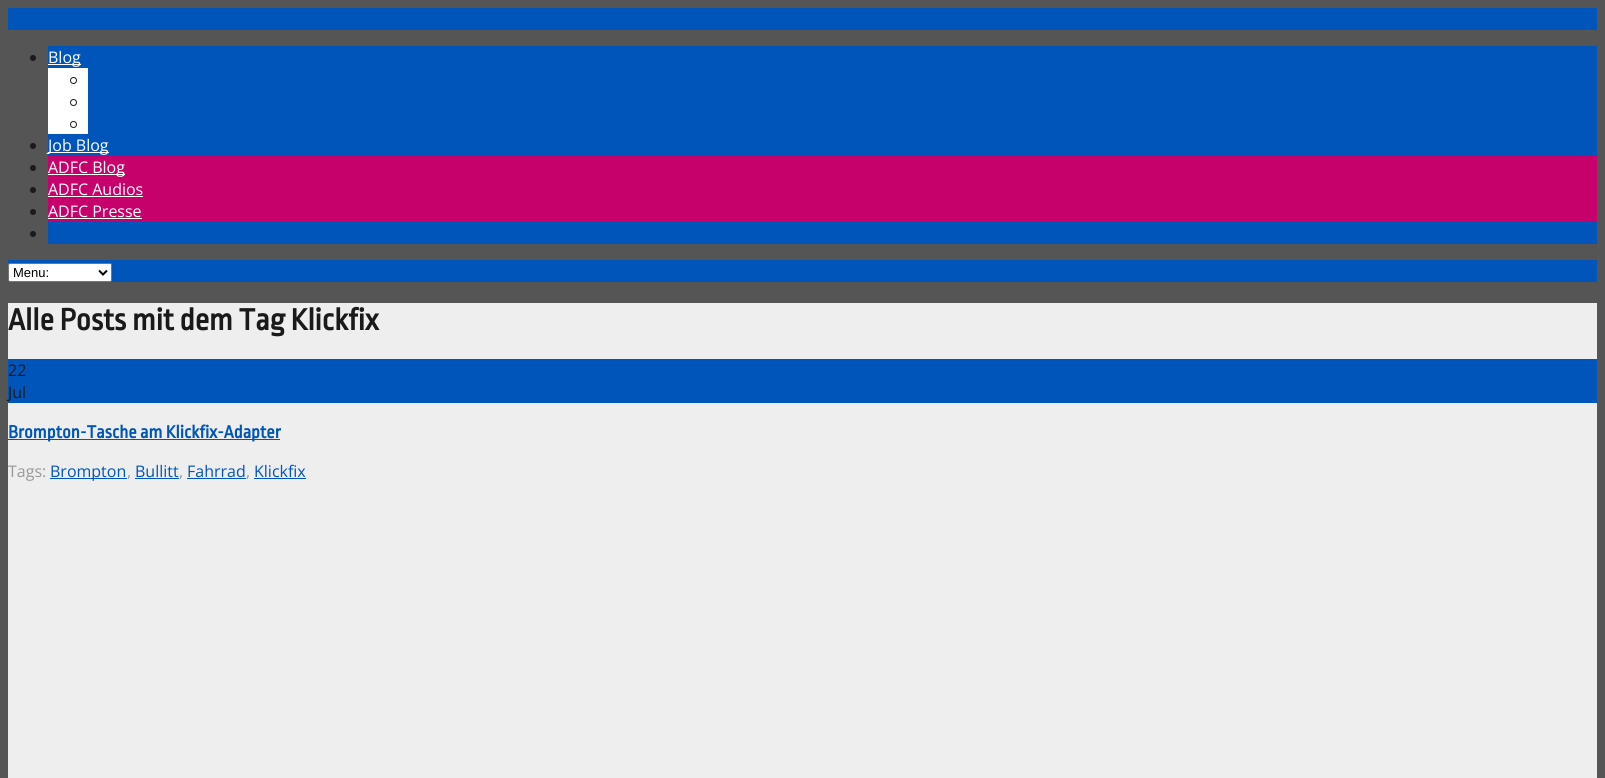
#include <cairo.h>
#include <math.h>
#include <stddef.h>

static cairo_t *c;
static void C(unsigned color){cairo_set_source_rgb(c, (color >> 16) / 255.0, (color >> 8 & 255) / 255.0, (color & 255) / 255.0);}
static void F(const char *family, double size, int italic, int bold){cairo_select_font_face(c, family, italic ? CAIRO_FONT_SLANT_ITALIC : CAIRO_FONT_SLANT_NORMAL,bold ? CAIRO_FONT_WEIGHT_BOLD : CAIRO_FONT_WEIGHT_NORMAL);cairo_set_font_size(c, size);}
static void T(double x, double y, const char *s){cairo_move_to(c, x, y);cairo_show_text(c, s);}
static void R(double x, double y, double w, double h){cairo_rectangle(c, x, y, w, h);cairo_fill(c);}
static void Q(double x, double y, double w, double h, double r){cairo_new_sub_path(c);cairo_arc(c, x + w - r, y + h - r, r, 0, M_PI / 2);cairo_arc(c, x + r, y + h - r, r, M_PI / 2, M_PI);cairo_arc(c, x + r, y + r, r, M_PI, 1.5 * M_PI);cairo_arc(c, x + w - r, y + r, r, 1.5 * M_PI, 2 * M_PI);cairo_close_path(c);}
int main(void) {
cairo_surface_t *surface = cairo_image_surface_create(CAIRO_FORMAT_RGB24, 1605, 778);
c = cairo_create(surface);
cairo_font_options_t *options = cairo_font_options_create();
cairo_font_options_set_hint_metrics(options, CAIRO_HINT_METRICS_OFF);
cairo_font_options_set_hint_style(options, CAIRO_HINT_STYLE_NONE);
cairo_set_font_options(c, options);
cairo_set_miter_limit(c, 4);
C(0x555555);
cairo_paint(c);
C(0x0055bb);
R(8,8,1589,22);
R(48,46,1549,22);
C(0x1a1a1a);
cairo_arc(c,33,58,3,0,2 * M_PI);
cairo_fill(c);
C(0xffffff);
R(48,64,33,1);
F("Open Sans",16,0,0);
T(48,63,"Blog");
R(48,68,40,66);
C(0x0055bb);
R(88,68,1509,66);
cairo_new_path(c);
cairo_arc(c,73.5,80.5,3,0,2 * M_PI);
C(0x1a1a1a);
cairo_set_line_width(c,1);
cairo_stroke(c);
cairo_arc(c,73.5,102.5,3,0,2 * M_PI);
cairo_stroke(c);
cairo_arc(c,73.5,124.5,3,0,2 * M_PI);
cairo_stroke(c);
C(0x0055bb);
R(48,134,1549,22);
C(0x1a1a1a);
cairo_arc(c,33,146,3,0,2 * M_PI);
cairo_fill(c);
C(0xffffff);
R(48,152,61,1);
T(48,151,"Job Blog");
C(0xc6016b);
R(48,156,1549,66);
C(0x1a1a1a);
cairo_new_path(c);
cairo_arc(c,33,168,3,0,2 * M_PI);
cairo_fill(c);
C(0xffffff);
R(48,174,77,1);
T(48,173,"ADFC Blog");
C(0x1a1a1a);
cairo_new_path(c);
cairo_arc(c,33,190,3,0,2 * M_PI);
cairo_fill(c);
C(0xffffff);
T(48,195,"ADFC Audios");
R(48,196,95,1);
C(0x1a1a1a);
cairo_new_path(c);
cairo_arc(c,33,212,3,0,2 * M_PI);
cairo_fill(c);
C(0xffffff);
T(48,217,"ADFC Presse");
R(48,218,94,1);
C(0x0055bb);
R(48,222,1549,22);
C(0x1a1a1a);
cairo_new_path(c);
cairo_arc(c,33,234,3,0,2 * M_PI);
cairo_fill(c);
C(0x0055bb);
R(8,260,1589,22);
C(0xffffff);
Q(8.5,263.5,103,18,1.5);
cairo_fill_preserve(c);
C(0x767676);
cairo_stroke(c);
cairo_new_path(c);
cairo_move_to(c,99,270.5);
cairo_line_to(c,103,274.5);
cairo_line_to(c,107,270.5);
C(0x000000);
cairo_set_line_width(c,2);
cairo_stroke(c);
F("Liberation Sans",13,0,0);
T(13,277,"Menu:");
C(0xeeeeee);
R(8,303,1589,475);
F("Ropa Sans",32,0,1);
C(0x1a1a1a);
T(8,330,"Alle Posts mit dem Tag Klickfix");
C(0x0055bb);
R(8,359,1589,44);
F("Open Sans",16,0,0);
C(0x1a1a1a);
T(8,376,"22");
T(8,398,"Jul");
C(0x0055bb);
R(8,439,272,1);
F("Ropa Sans",18.75,0,1);
T(8,438,"Brompton-Tasche am Klickfix-Adapter");
F("Open Sans",16,0,0);
C(0x999999);
T(8,477,"Tags:");
C(0x0055bb);
R(50,478,77,1);
T(50,477,"Brompton");
C(0x999999);
T(127,477,",");
C(0x0055bb);
T(135,477,"Bullitt");
R(135,478,44,1);
C(0x999999);
T(179,477,",");
C(0x0055bb);
T(187,477,"Fahrrad");
R(187,478,59,1);
C(0x999999);
T(246,477,",");
C(0x0055bb);
T(254,477,"Klickfix");
R(254,478,52,1);
cairo_surface_write_to_png(surface, "o.png");
cairo_font_options_destroy(options);
cairo_destroy(c);
cairo_surface_destroy(surface);
return 0;
}
